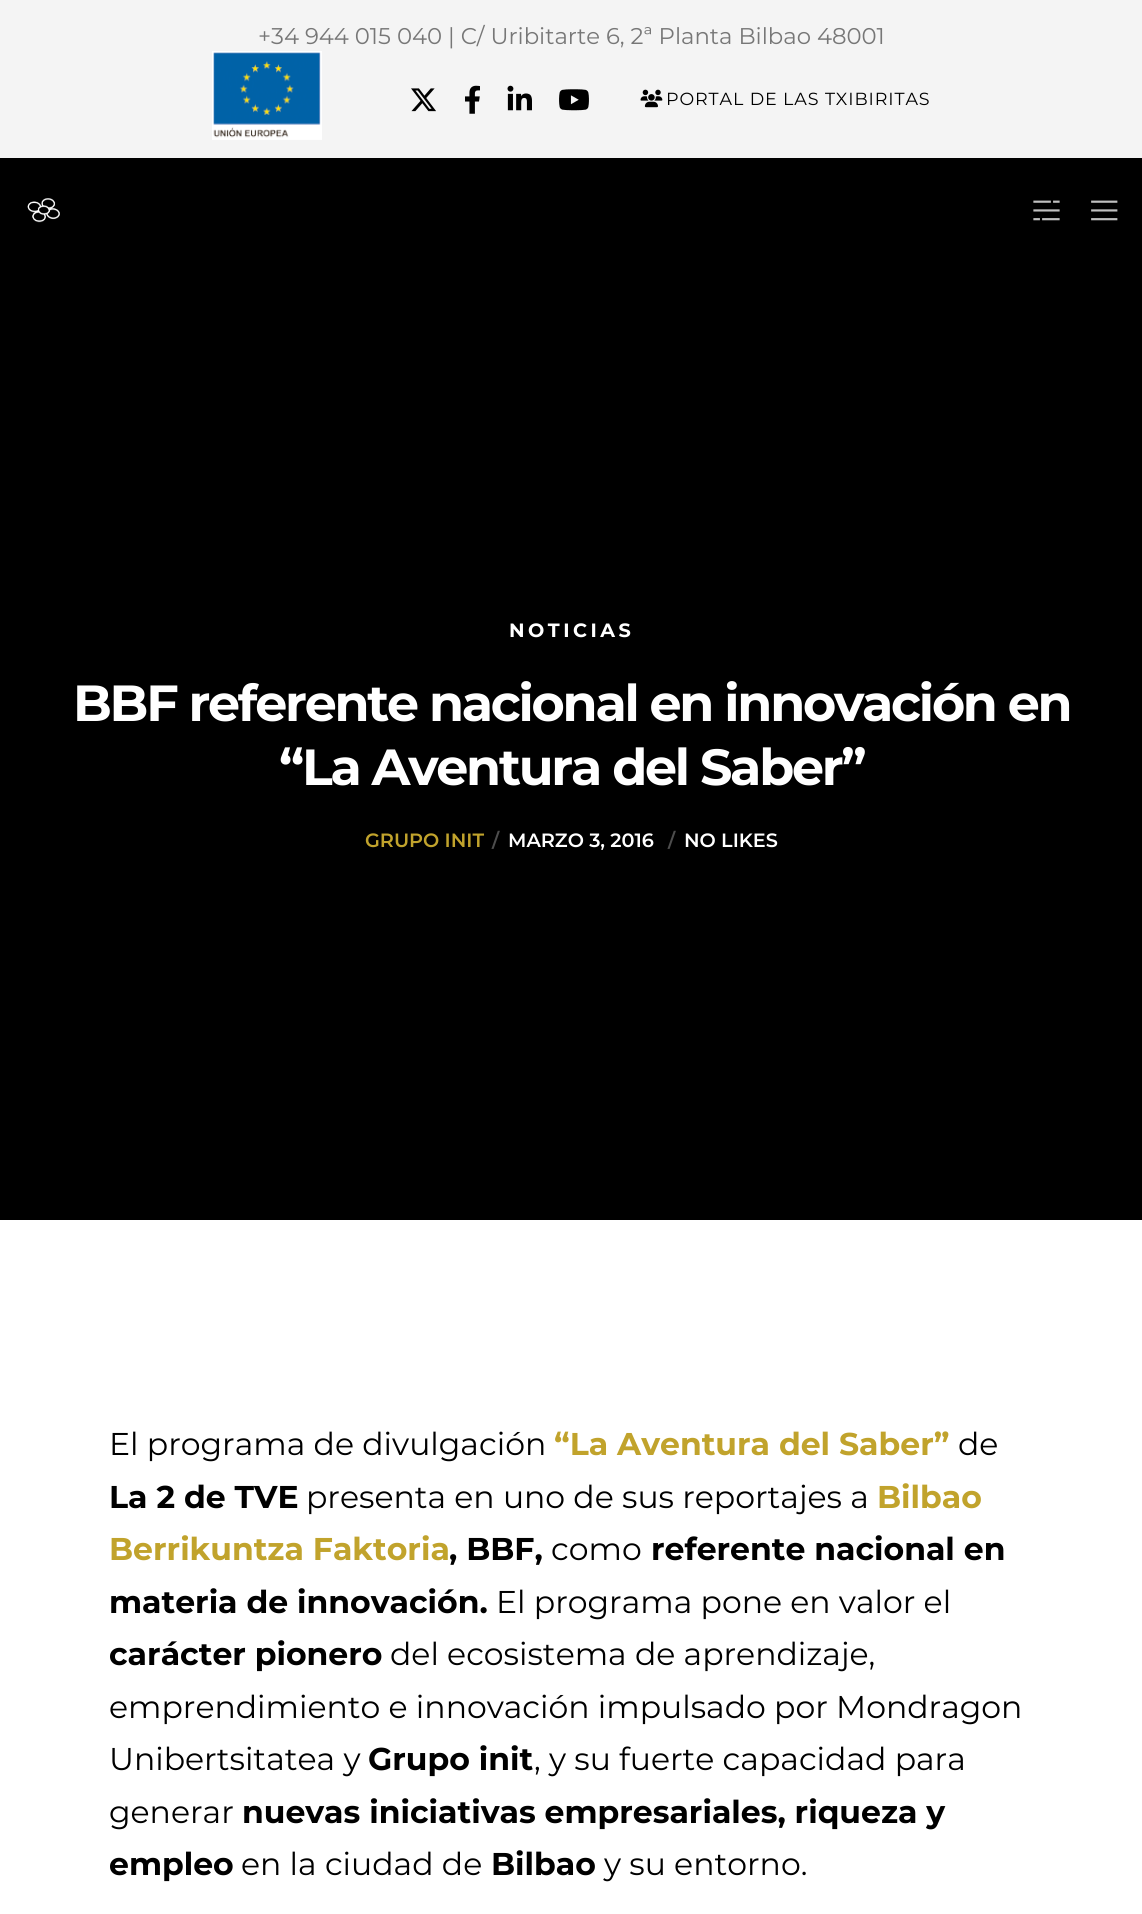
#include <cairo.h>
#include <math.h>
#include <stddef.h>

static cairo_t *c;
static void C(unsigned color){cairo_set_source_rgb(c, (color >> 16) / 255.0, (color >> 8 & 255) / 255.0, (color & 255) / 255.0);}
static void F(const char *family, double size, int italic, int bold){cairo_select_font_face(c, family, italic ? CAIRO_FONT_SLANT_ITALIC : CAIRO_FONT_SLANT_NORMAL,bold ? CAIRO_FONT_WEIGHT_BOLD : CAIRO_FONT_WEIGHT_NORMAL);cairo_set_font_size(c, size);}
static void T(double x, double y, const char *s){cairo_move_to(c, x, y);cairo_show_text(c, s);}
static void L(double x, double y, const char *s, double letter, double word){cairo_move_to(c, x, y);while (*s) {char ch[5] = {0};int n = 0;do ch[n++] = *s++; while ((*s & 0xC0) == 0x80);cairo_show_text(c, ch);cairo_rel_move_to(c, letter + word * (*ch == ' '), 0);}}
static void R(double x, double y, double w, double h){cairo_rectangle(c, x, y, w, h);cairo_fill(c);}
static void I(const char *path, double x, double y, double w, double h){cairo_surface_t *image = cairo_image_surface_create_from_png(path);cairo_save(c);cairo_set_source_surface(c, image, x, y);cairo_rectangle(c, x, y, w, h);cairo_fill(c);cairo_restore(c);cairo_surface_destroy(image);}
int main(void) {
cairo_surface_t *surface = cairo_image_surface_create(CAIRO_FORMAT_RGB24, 1142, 1914);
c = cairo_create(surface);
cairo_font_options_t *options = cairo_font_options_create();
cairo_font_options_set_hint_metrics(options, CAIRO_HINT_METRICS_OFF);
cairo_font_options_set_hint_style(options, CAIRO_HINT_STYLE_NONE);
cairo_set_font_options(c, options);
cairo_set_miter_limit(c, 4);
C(0x000000);
cairo_paint(c);
C(0xf4f4f4);
R(0,0,1142,158);
F("Montserrat",22.75,0,0);
C(0x777777);
T(258,44,"+34 944 015 040 | C/ Uribitarte 6, 2ª Planta Bilbao 48001");
I("1.png",212,51,110,89);
I("2.png",411,88,25,24);
I("3.png",465,85,15,29);
I("4.png",507,85,25,26);
I("5.png",559,89,30,22);
I("6.png",640,89,23,19);
F("Montserrat",17.5,0,0);
C(0x000000);
L(666,105,"PORTAL DE LAS TXIBIRITAS",.9,0);
I("7.png",27,198,33,25);
I("8.png",1033,200,27,21);
I("9.png",1091,200,27,21);
F("Montserrat",19.25,0,1);
C(0xffffff);
L(509,637,"NOTICIAS",3.5,0);
F("Montserrat",50.75,0,1);
L(73,721,"BBF referente nacional en innovación en",-2.25,0);
L(279,785,"“La Aventura del Saber”",-2.25,0);
F("Montserrat SemiBold",19.25,0,0);
C(0xc1a32c);
T(365,847,"GRUPO INIT");
C(0x4d4d4d);
T(492,847,"/");
C(0xffffff);
T(508,847,"MARZO 3, 2016");
C(0x4d4d4d);
T(668,847,"/");
C(0xffffff);
T(684,847,"NO LIKES");
R(0,1220,1142,694);
F("Montserrat",31.5,0,0);
C(0x000000);
T(109,1455,"El programa de divulgación");
F("Montserrat",31.5,0,1);
C(0xc1a32c);
T(554,1455,"“La Aventura del Saber”");
F("Montserrat",31.5,0,0);
C(0x000000);
T(958,1455,"de");
F("Montserrat",31.5,0,1);
T(109,1508,"La 2 de TVE");
F("Montserrat",31.5,0,0);
T(306,1508,"presenta en uno de sus reportajes a");
F("Montserrat",31.5,0,1);
C(0xc1a32c);
T(877,1508,"Bilbao");
T(109,1560,"Berrikuntza Faktoria");
C(0x000000);
T(449,1560,", BBF,");
F("Montserrat",31.5,0,0);
T(551,1560,"como");
F("Montserrat",31.5,0,1);
T(651,1560,"referente nacional en");
T(109,1613,"materia de innovación.");
F("Montserrat",31.5,0,0);
T(496,1613,"El programa pone en valor el");
F("Montserrat",31.5,0,1);
T(109,1665,"carácter pionero");
F("Montserrat",31.5,0,0);
T(390,1665,"del ecosistema de aprendizaje,");
T(109,1718,"emprendimiento e innovación impulsado por Mondragon");
T(109,1770,"Unibertsitatea y");
F("Montserrat",31.5,0,1);
T(368,1770,"Grupo init");
F("Montserrat",31.5,0,0);
T(534,1770,", y su fuerte capacidad para");
T(109,1823,"generar");
F("Montserrat",31.5,0,1);
T(242,1823,"nuevas iniciativas empresariales, riqueza y");
T(109,1875,"empleo");
F("Montserrat",31.5,0,0);
T(241,1875,"en la ciudad de");
F("Montserrat",31.5,0,1);
T(491,1875,"Bilbao");
F("Montserrat",31.5,0,0);
T(604,1875,"y su entorno.");
cairo_surface_write_to_png(surface, "o.png");
cairo_font_options_destroy(options);
cairo_destroy(c);
cairo_surface_destroy(surface);
return 0;
}
